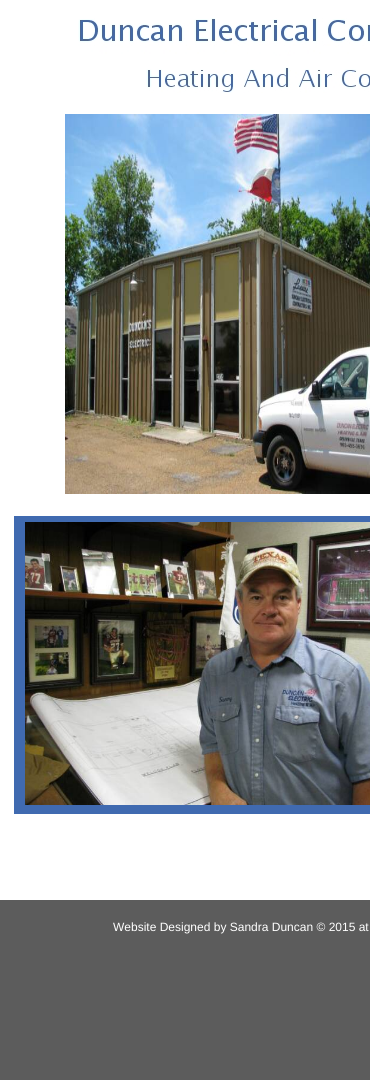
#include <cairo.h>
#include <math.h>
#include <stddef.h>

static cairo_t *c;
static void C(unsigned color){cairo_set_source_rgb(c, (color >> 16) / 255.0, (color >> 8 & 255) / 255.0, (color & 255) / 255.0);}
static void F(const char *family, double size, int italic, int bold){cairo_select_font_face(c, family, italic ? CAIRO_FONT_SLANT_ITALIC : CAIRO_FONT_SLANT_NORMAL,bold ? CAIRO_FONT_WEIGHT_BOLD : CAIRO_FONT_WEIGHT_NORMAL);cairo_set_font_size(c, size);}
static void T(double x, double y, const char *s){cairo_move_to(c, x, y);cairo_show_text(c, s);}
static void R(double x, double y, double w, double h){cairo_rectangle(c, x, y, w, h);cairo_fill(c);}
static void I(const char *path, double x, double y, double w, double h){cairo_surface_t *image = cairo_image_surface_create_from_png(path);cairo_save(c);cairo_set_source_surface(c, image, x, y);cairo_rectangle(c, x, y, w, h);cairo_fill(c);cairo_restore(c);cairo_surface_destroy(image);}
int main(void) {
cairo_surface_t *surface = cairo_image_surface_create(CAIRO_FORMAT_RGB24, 370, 1080);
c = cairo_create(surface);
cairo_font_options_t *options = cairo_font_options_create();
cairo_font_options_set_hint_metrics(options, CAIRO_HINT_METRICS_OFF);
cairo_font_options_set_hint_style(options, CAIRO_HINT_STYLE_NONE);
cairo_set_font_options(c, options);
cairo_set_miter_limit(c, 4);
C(0x5c5c5c);
cairo_paint(c);
C(0xffffff);
R(0,0,370,900);
I("1.png",78,18,292,75);
I("2.png",65,114,305,380);
C(0x406ab0);
R(14,516,356,298);
I("3.png",25,522,345,283);
F("Liberation Sans",12,0,0);
C(0xffffff);
T(113,931,"Website Designed by Sandra Duncan © 2015 at");
cairo_surface_write_to_png(surface, "o.png");
cairo_font_options_destroy(options);
cairo_destroy(c);
cairo_surface_destroy(surface);
return 0;
}
